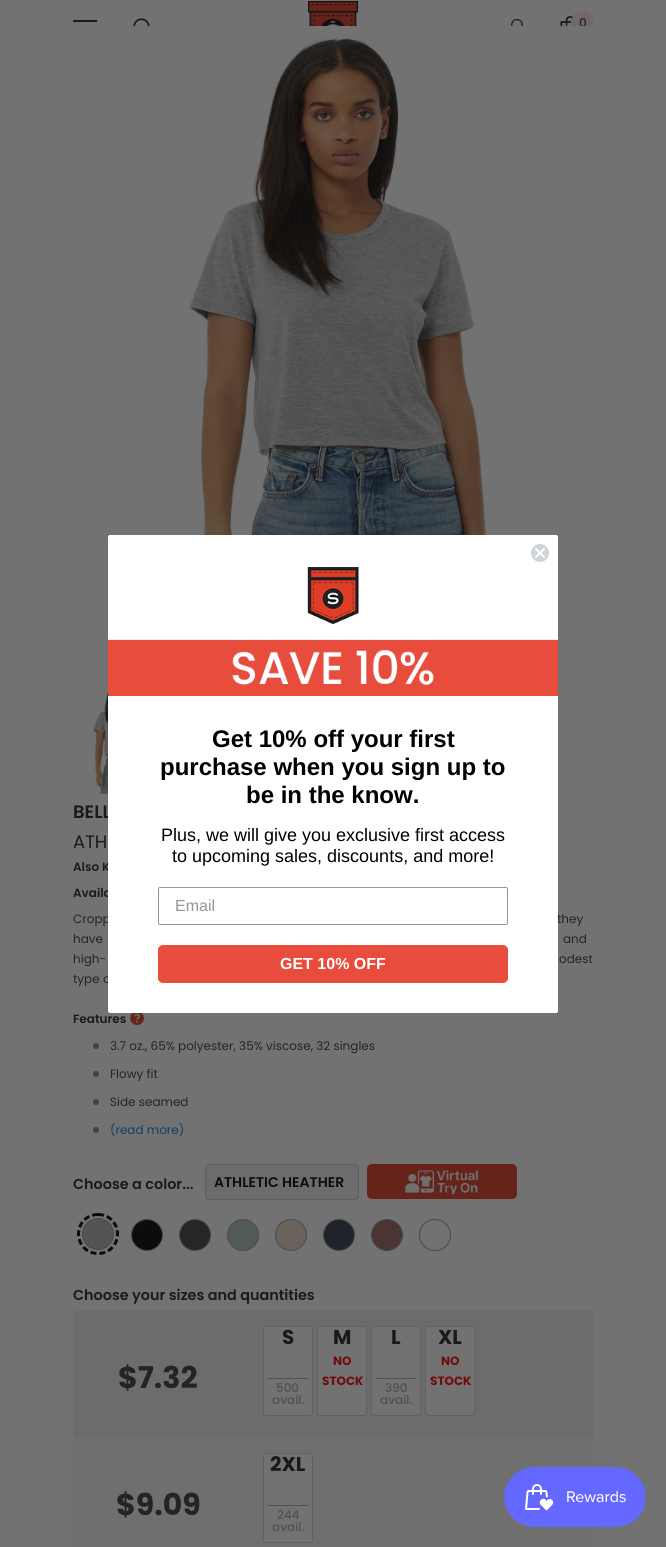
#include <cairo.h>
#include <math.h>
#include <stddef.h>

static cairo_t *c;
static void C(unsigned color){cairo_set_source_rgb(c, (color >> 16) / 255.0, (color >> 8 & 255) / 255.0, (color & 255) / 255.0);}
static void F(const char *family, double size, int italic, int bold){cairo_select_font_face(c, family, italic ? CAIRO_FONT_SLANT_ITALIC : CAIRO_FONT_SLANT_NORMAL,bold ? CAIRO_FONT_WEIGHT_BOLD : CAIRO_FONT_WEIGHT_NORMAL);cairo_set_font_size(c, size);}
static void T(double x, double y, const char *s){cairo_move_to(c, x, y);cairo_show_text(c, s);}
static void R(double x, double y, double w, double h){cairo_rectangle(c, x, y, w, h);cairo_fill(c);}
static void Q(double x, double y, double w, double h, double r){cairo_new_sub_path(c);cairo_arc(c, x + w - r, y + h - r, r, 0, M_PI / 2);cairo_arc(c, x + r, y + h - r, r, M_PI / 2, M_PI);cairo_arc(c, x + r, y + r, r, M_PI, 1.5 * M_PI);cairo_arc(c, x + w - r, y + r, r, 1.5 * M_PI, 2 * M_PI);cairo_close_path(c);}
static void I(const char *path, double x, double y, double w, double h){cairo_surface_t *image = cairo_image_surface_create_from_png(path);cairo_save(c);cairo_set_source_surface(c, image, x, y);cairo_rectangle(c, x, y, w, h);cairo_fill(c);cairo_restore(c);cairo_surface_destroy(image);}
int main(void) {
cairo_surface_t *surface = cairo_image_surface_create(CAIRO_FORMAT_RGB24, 666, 1547);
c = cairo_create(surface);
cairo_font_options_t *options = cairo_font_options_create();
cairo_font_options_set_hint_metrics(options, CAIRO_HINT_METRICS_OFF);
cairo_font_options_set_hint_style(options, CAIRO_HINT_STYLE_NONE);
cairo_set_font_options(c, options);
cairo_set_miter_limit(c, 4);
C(0x727272);
cairo_paint(c);
C(0x1a1a1a);
R(73,20,24,2);
I("1.png",133,18,17,8);
I("2.png",308,1,50,25);
I("3.png",511,19,12,7);
I("4.png",560,16,13,10);
C(0x726868);
cairo_arc(c,582.5,22.5,11.5,0,2 * M_PI);
cairo_fill(c);
F("Poppins Medium",12,0,0);
C(0x242424);
T(579,27,"0");
I("7.png",73,26,520,650);
F("Poppins SemiBold",18,0,0);
C(0x1a1a1a);
T(73,818,"BELL");
F("Poppins SemiBold",12,0,0);
T(73,871,"Also K");
T(73,897,"Availa");
F("Poppins",12,0,0);
C(0x242424);
T(73,923,"Cropp");
T(557,923,"they");
T(73,983,"type o");
C(0xffffff);
Q(108,535,450,478,2);
cairo_fill(c);
I("5.png",531,544,18,18);
I("6.png",108,567,450,129);
F("Liberation Sans",24,0,1);
C(0x000000);
T(212,747,"Get 10% off your first");
T(160,775,"purchase when you sign up to");
T(246,803,"be in the know.");
F("Liberation Sans",18,0,0);
T(161,841,"Plus, we will give you exclusive first access");
T(172,862,"to upcoming sales, discounts, and more!");
Q(158.5,887.5,349,37,1.5);
C(0x949596);
cairo_set_line_width(c,1);
cairo_stroke(c);
F("Liberation Sans",16,0,0);
T(175,911,"Email");
C(0xe74c3c);
Q(158,945,350,38,5);
cairo_fill(c);
F("Liberation Sans",16,0,1);
C(0xffffff);
T(280,969,"GET 10% OFF");
I("8.png",93,681,15,113);
F("Poppins",18,0,0);
C(0x1a1a1a);
T(73,848,"ATH");
F("Poppins",12,0,0);
C(0x242424);
T(73,943,"have");
T(563,943,"and");
T(73,963,"high-");
T(559,963,"odest");
F("Poppins SemiBold",12,0,0);
C(0x1a1a1a);
T(73,1023,"Features");
I("9.png",130,1013,14,12);
C(0x444444);
cairo_arc(c,96,1046,3,0,2 * M_PI);
cairo_fill(c);
F("Poppins",12,0,0);
C(0x242424);
T(110,1050,"3.7 oz., 65% polyester, 35% viscose, 32 singles");
C(0x444444);
cairo_new_path(c);
cairo_arc(c,96,1074,3,0,2 * M_PI);
cairo_fill(c);
C(0x242424);
T(110,1078,"Flowy fit");
C(0x444444);
cairo_new_path(c);
cairo_arc(c,96,1102,3,0,2 * M_PI);
cairo_fill(c);
C(0x242424);
T(110,1106,"Side seamed");
C(0x444444);
cairo_new_path(c);
cairo_arc(c,96,1130,3,0,2 * M_PI);
cairo_fill(c);
C(0x0e4266);
T(110,1134,"(read more)");
F("Poppins SemiBold",14.4,0,0);
C(0x1a1a1a);
T(73,1189,"Choose a color...");
C(0x6c6c6c);
Q(205.5,1164.5,153,35,3.5);
cairo_fill_preserve(c);
C(0x5d5d5d);
cairo_stroke(c);
F("Poppins SemiBold",14,0,0);
C(0x0c0c0c);
T(214,1187,"ATHLETIC HEATHER");
C(0x65231a);
Q(367,1164,150,35,5);
cairo_fill(c);
I("10.png",404,1169,75,25);
cairo_new_path(c);
cairo_move_to(c,98,1214.5);
cairo_curve_to(c,109,1214.5,117.5,1223,117.5,1234);
cairo_curve_to(c,117.5,1245,109,1253.5,98,1253.5);
cairo_curve_to(c,87,1253.5,78.5,1245,78.5,1234);
cairo_curve_to(c,78.5,1223,87,1214.5,98,1214.5);
cairo_close_path(c);
C(0x0c0c0c);
cairo_set_line_width(c,3);
cairo_set_dash(c,(double[]){6,3},2,0);
cairo_stroke(c);
C(0x545454);
cairo_arc(c,98,1234,15.5,0,2 * M_PI);
cairo_fill_preserve(c);
C(0x4a4a4a);
cairo_set_line_width(c,1);
cairo_set_dash(c,NULL,0,0);
cairo_stroke(c);
C(0x0c0c0c);
cairo_arc(c,147,1235,15.5,0,2 * M_PI);
cairo_fill_preserve(c);
C(0x4a4a4a);
cairo_stroke(c);
C(0x262626);
cairo_arc(c,195,1235,15.5,0,2 * M_PI);
cairo_fill_preserve(c);
C(0x4a4a4a);
cairo_stroke(c);
C(0x515a57);
cairo_arc(c,243,1235,15.5,0,2 * M_PI);
cairo_fill_preserve(c);
C(0x4a4a4a);
cairo_stroke(c);
C(0x6a635c);
cairo_arc(c,291,1235,15.5,0,2 * M_PI);
cairo_fill_preserve(c);
C(0x4a4a4a);
cairo_stroke(c);
C(0x20232a);
cairo_arc(c,339,1235,15.5,0,2 * M_PI);
cairo_fill_preserve(c);
C(0x4a4a4a);
cairo_stroke(c);
C(0x4b3432);
cairo_arc(c,387,1235,15.5,0,2 * M_PI);
cairo_fill_preserve(c);
C(0x4a4a4a);
cairo_stroke(c);
cairo_arc(c,435,1235,15.5,0,2 * M_PI);
cairo_stroke(c);
F("Poppins SemiBold",14.4,0,0);
C(0x1a1a1a);
T(73,1300,"Choose your sizes and quantities");
C(0x6c6c6c);
R(73,1311,520,127);
F("Poppins",30,0,1);
C(0x242424);
T(118,1388,"$7.32");
C(0x727272);
Q(263.5,1326.5,49,89,2.5);
cairo_fill_preserve(c);
C(0x616162);
cairo_stroke(c);
F("Poppins",20,0,1);
C(0x1a1a1a);
T(282,1344,"S");
C(0x505050);
R(268,1378,40,1);
F("Poppins Medium",12,0,0);
T(276,1392,"500");
T(272,1404,"avail.");
C(0x727272);
Q(317.5,1326.5,49,89,2.5);
cairo_fill_preserve(c);
C(0x616162);
cairo_stroke(c);
F("Poppins",20,0,1);
C(0x1a1a1a);
T(333,1344,"M");
F("Poppins",12,0,1);
C(0x720c0c);
T(333,1365,"NO");
T(322,1385,"STOCK");
C(0x727272);
Q(371.5,1326.5,49,89,2.5);
cairo_fill_preserve(c);
C(0x616162);
cairo_stroke(c);
F("Poppins",20,0,1);
C(0x1a1a1a);
T(391,1344,"L");
C(0x505050);
R(376,1378,40,1);
F("Poppins Medium",12,0,0);
T(385,1392,"390");
T(380,1404,"avail.");
C(0x727272);
Q(425.5,1326.5,49,89,2.5);
cairo_fill_preserve(c);
C(0x616162);
cairo_stroke(c);
F("Poppins",20,0,1);
C(0x1a1a1a);
T(438,1344,"XL");
F("Poppins",12,0,1);
C(0x720c0c);
T(441,1365,"NO");
T(430,1385,"STOCK");
C(0x6f6f6f);
R(73,1438,520,109);
F("Poppins",30,0,1);
C(0x242424);
T(116,1515,"$9.09");
C(0x727272);
Q(263.5,1453.5,49,89,2.5);
cairo_fill_preserve(c);
C(0x616162);
cairo_stroke(c);
F("Poppins",20,0,1);
C(0x1a1a1a);
T(270,1471,"2XL");
C(0x505050);
R(268,1505,40,1);
F("Poppins Medium",12,0,0);
T(277,1519,"244");
T(272,1531,"avail.");
I("11.png",504,1467,142,60);
cairo_surface_write_to_png(surface, "o.png");
cairo_font_options_destroy(options);
cairo_destroy(c);
cairo_surface_destroy(surface);
return 0;
}
